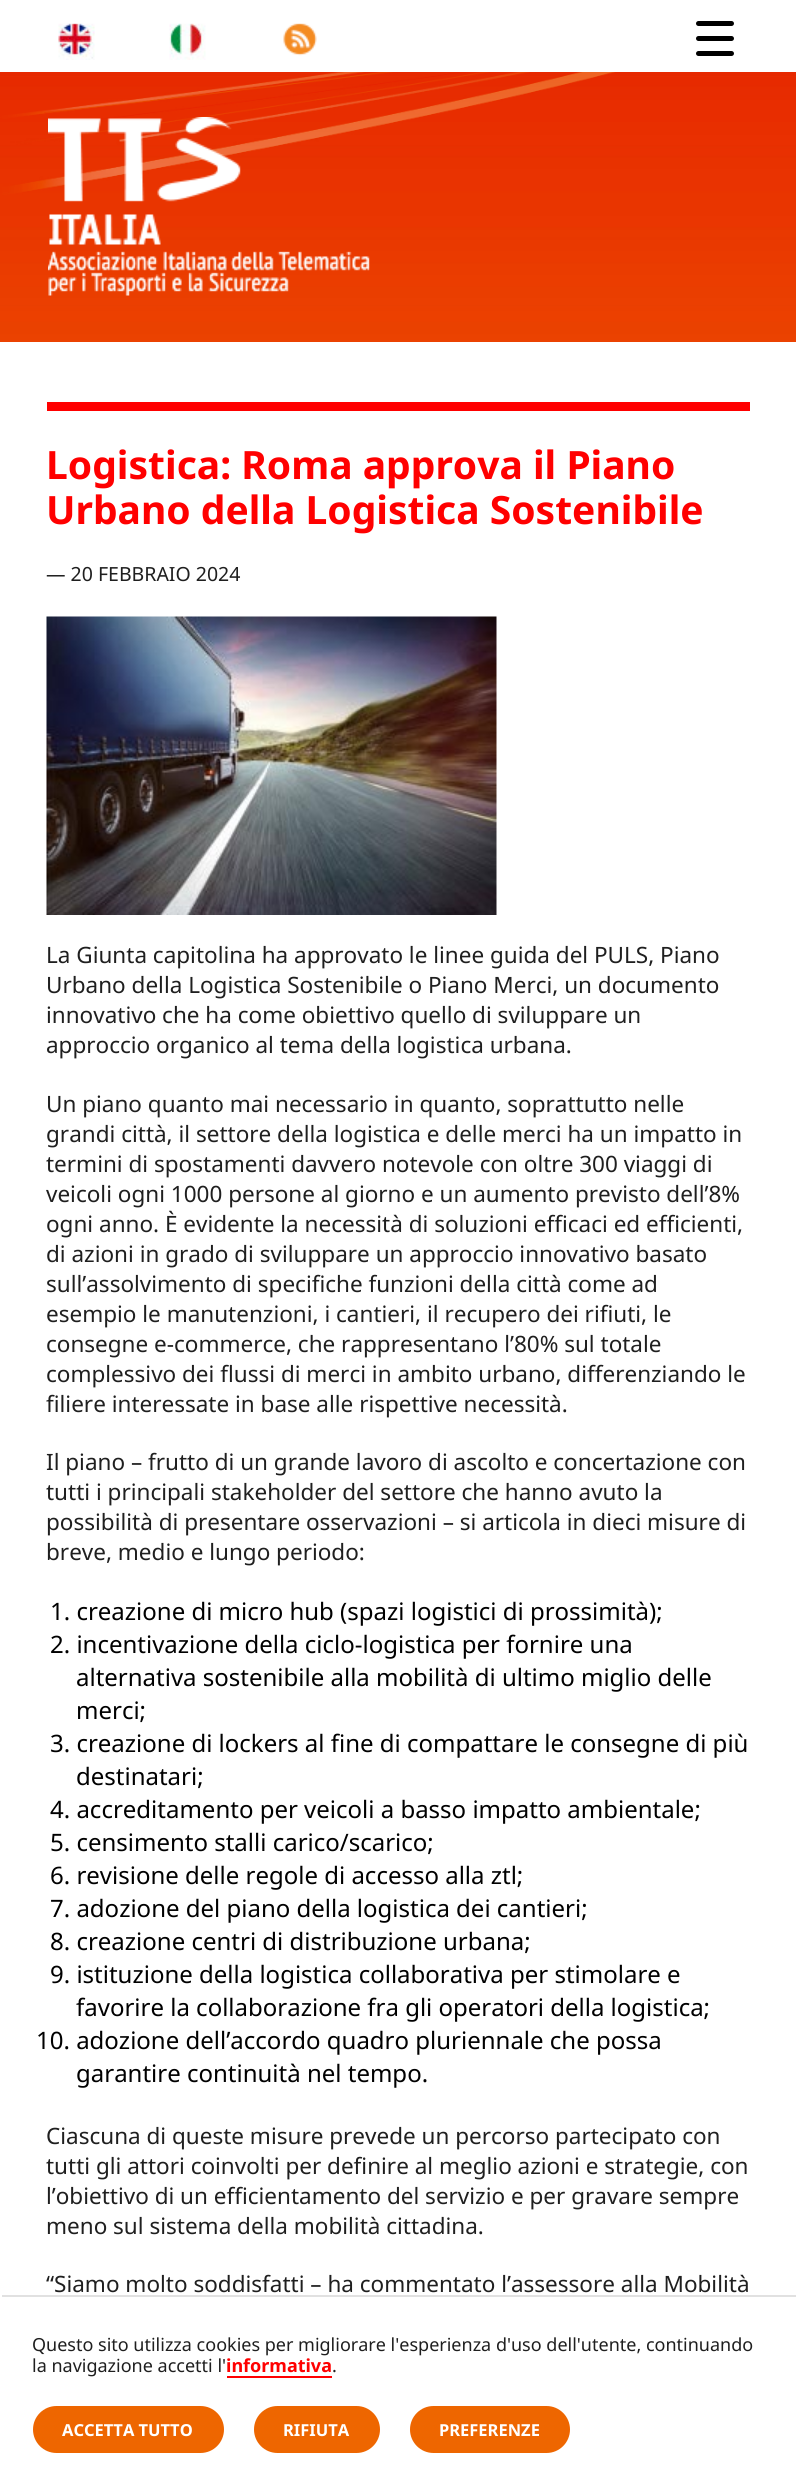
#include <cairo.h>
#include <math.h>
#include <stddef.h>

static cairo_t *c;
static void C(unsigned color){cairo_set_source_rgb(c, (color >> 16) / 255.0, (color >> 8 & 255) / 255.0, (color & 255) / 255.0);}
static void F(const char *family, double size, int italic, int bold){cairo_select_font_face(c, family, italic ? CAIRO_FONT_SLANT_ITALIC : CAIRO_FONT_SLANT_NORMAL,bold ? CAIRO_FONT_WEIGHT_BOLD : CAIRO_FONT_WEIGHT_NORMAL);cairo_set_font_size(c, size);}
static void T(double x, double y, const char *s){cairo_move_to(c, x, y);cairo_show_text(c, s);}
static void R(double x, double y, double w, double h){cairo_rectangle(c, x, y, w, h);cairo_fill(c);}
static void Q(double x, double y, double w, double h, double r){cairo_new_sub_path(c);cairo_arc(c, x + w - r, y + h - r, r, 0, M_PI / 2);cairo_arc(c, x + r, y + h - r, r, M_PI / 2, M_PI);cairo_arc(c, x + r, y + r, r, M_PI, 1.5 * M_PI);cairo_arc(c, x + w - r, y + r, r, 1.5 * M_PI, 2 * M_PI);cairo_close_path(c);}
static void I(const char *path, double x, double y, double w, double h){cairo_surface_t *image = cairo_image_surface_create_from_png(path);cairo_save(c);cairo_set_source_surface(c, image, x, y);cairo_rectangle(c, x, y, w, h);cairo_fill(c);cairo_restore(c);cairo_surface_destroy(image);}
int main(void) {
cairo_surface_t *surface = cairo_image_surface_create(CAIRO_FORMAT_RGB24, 796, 2474);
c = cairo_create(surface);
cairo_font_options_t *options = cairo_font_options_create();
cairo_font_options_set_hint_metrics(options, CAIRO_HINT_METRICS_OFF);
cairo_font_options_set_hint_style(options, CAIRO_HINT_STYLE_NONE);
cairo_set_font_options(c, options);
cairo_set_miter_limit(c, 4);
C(0xffffff);
cairo_paint(c);
I("1.png",0,72,796,270);
C(0x000000);
Q(696,36,38,5,2.5);
cairo_fill(c);
Q(696,21,38,5,2.5);
cairo_fill(c);
Q(696,51,38,5,2.5);
cairo_fill(c);
I("2.png",58,23,37,37);
I("3.png",169,23,37,37);
I("4.png",283,23,34,33);
I("5.png",48,117,322,179);
C(0xff0000);
R(47,402,703,9);
F("Noto Sans",39,0,1);
T(46,479,"Logistica: Roma approva il Piano");
T(46,524,"Urbano della Logistica Sostenibile");
F("Noto Sans",19.5,0,0);
C(0x1f1f1f);
T(46,581,"— 20 FEBBRAIO 2024");
I("6.png",46,616,451,299);
F("Noto Sans",22.5,0,0);
T(46,963,"La Giunta capitolina ha approvato le linee guida del PULS, Piano");
T(46,993,"Urbano della Logistica Sostenibile o Piano Merci, un documento");
T(46,1023,"innovativo che ha come obiettivo quello di sviluppare un");
T(46,1053,"approccio organico al tema della logistica urbana.");
T(46,1112,"Un piano quanto mai necessario in quanto, soprattutto nelle");
T(46,1142,"grandi città, il settore della logistica e delle merci ha un impatto in");
T(46,1172,"termini di spostamenti davvero notevole con oltre 300 viaggi di");
T(46,1202,"veicoli ogni 1000 persone al giorno e un aumento previsto dell’8%");
T(46,1232,"ogni anno. È evidente la necessità di soluzioni efficaci ed efficienti,");
T(46,1262,"di azioni in grado di sviluppare un approccio innovativo basato");
T(46,1292,"sull’assolvimento di specifiche funzioni della città come ad");
T(46,1322,"esempio le manutenzioni, i cantieri, il recupero dei rifiuti, le");
T(46,1352,"consegne e-commerce, che rappresentano l’80% sul totale");
T(46,1382,"complessivo dei flussi di merci in ambito urbano, differenziando le");
T(46,1412,"filiere interessate in base alle rispettive necessità.");
T(46,1470,"Il piano – frutto di un grande lavoro di ascolto e concertazione con");
T(46,1500,"tutti i principali stakeholder del settore che hanno avuto la");
T(46,1530,"possibilità di presentare osservazioni – si articola in dieci misure di");
T(46,1560,"breve, medio e lungo periodo:");
F("Noto Sans",24,0,0);
C(0x000000);
T(50,1620,"1. creazione di micro hub (spazi logistici di prossimità);");
T(50,1653,"2. incentivazione della ciclo-logistica per fornire una");
T(76,1686,"alternativa sostenibile alla mobilità di ultimo miglio delle");
T(76,1719,"merci;");
T(50,1752,"3. creazione di lockers al fine di compattare le consegne di più");
T(76,1785,"destinatari;");
T(50,1818,"4. accreditamento per veicoli a basso impatto ambientale;");
T(50,1851,"5. censimento stalli carico/scarico;");
T(50,1884,"6. revisione delle regole di accesso alla ztl;");
T(50,1917,"7. adozione del piano della logistica dei cantieri;");
T(50,1950,"8. creazione centri di distribuzione urbana;");
T(50,1983,"9. istituzione della logistica collaborativa per stimolare e");
T(76,2016,"favorire la collaborazione fra gli operatori della logistica;");
T(36,2049,"10. adozione dell’accordo quadro pluriennale che possa");
T(76,2082,"garantire continuità nel tempo.");
F("Noto Sans",22.5,0,0);
C(0x1f1f1f);
T(46,2144,"Ciascuna di queste misure prevede un percorso partecipato con");
T(46,2174,"tutti gli attori coinvolti per definire al meglio azioni e strategie, con");
T(46,2204,"l’obiettivo di un efficientamento del servizio e per gravare sempre");
T(46,2234,"meno sul sistema della mobilità cittadina.");
T(46,2292,"“Siamo molto soddisfatti – ha commentato l’assessore alla Mobilità");
C(0xe1e1e1);
R(2,2295,794,2);
F("Noto Sans",18,0,0);
C(0x1f1f1f);
T(32,2351,"Questo sito utilizza cookies per migliorare l'esperienza d'uso dell'utente, continuando");
T(32,2372,"la navigazione accetti l'");
F("Noto Sans",18,0,1);
C(0xff0000);
T(226,2372,"informativa");
R(227,2376,105,2);
F("Noto Sans",18,0,0);
C(0x1f1f1f);
T(332,2372,".");
C(0xee6600);
Q(33,2406,191,47,23.5);
cairo_fill(c);
F("Noto Sans",16.5,0,1);
C(0xffffff);
T(62,2436,"ACCETTA TUTTO");
C(0xee6600);
Q(254,2406,126,47,23.5);
cairo_fill(c);
C(0xffffff);
T(283,2436,"RIFIUTA");
C(0xee6600);
Q(410,2406,160,47,23.5);
cairo_fill(c);
C(0xffffff);
T(439,2436,"PREFERENZE");
cairo_surface_write_to_png(surface, "o.png");
cairo_font_options_destroy(options);
cairo_destroy(c);
cairo_surface_destroy(surface);
return 0;
}
